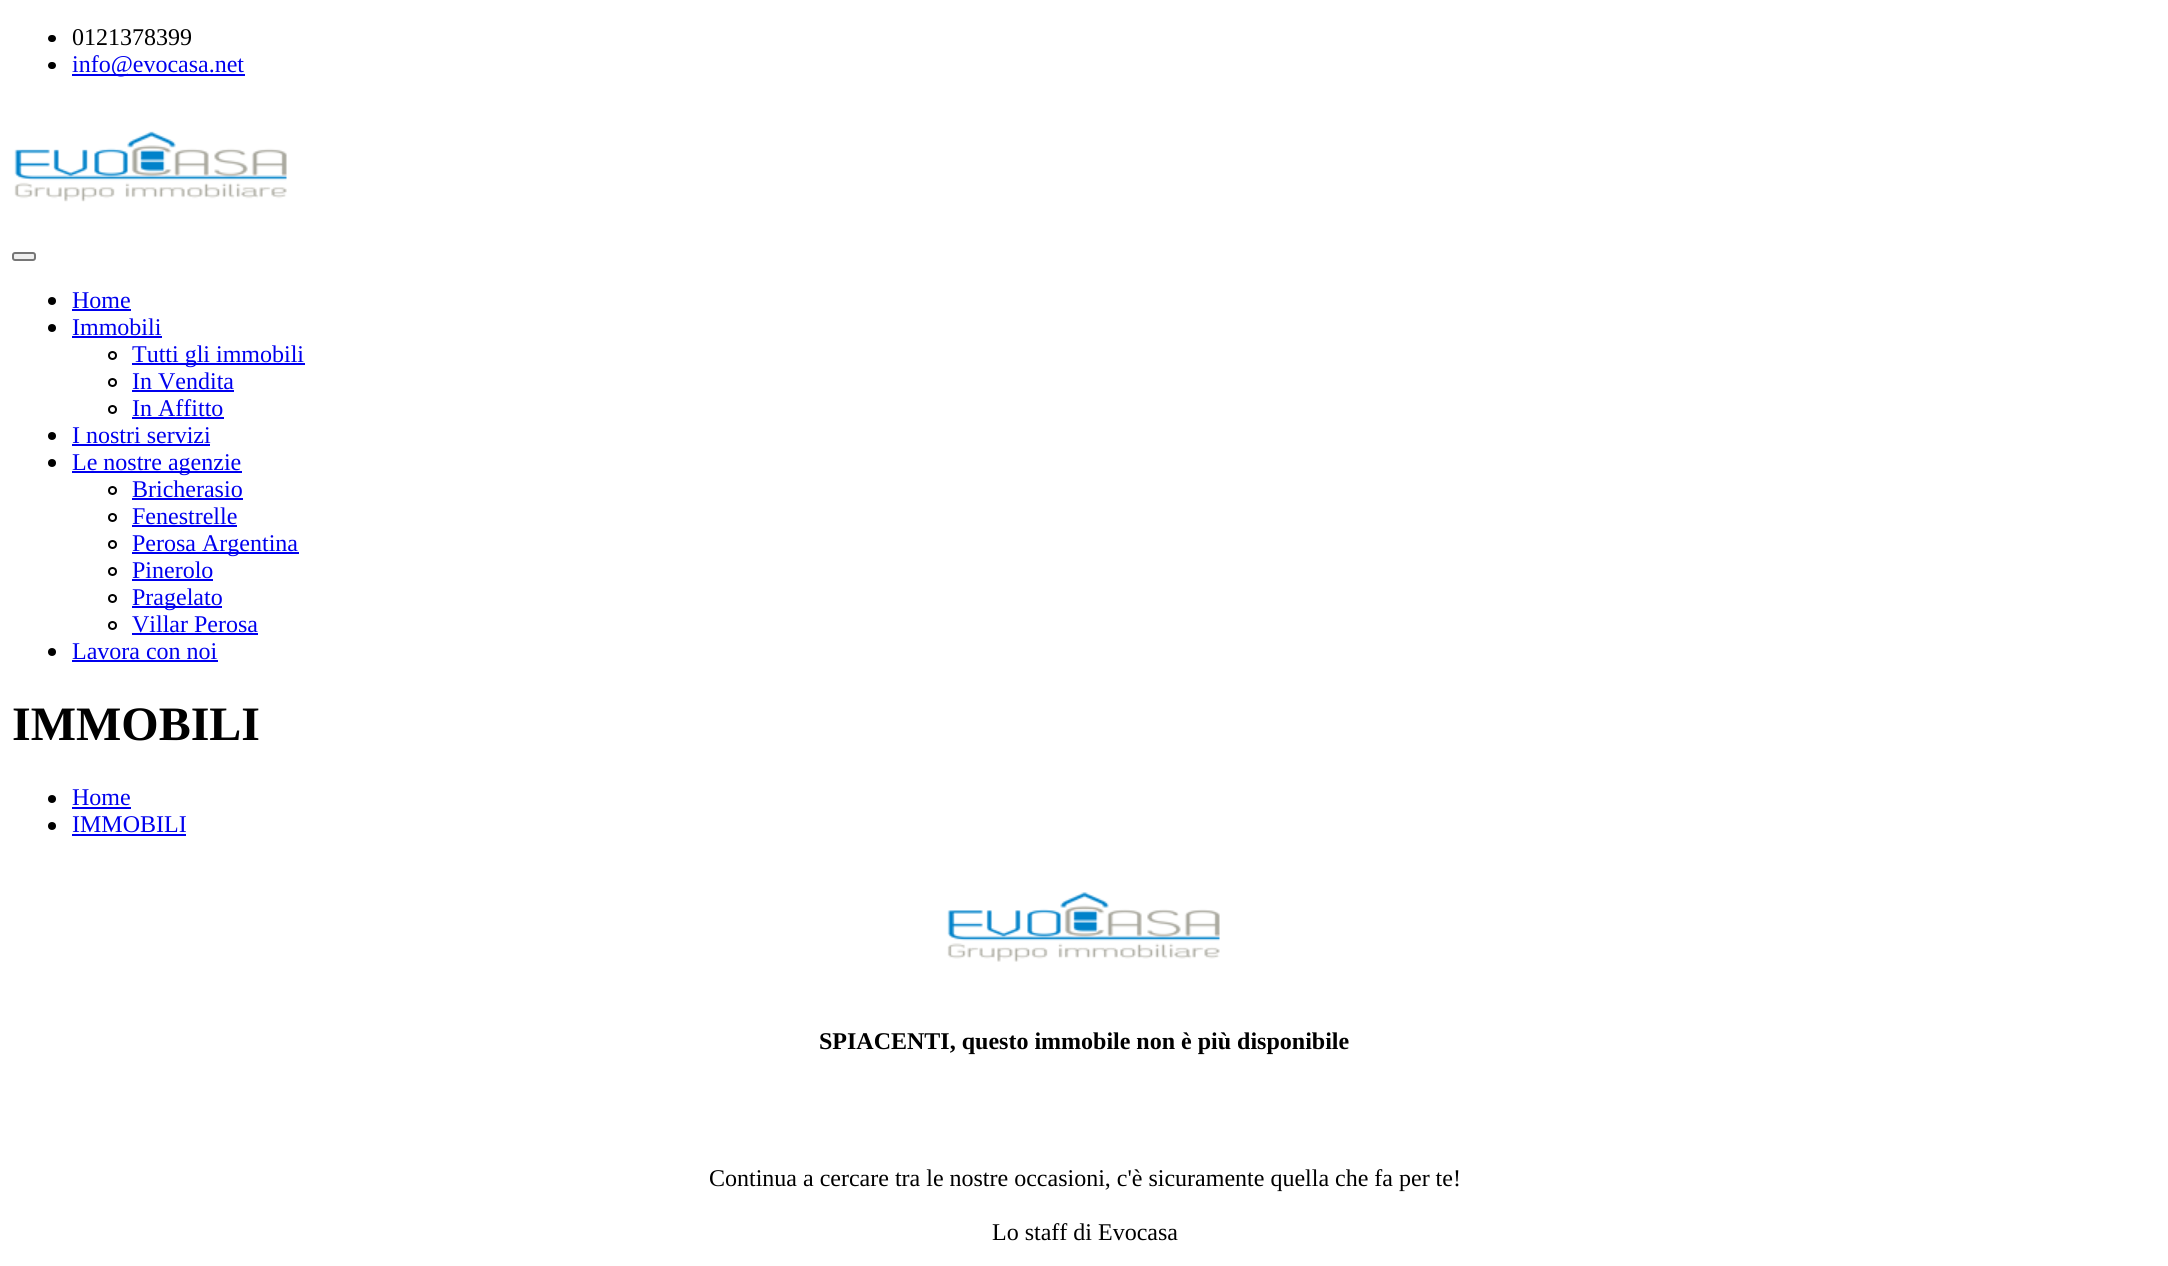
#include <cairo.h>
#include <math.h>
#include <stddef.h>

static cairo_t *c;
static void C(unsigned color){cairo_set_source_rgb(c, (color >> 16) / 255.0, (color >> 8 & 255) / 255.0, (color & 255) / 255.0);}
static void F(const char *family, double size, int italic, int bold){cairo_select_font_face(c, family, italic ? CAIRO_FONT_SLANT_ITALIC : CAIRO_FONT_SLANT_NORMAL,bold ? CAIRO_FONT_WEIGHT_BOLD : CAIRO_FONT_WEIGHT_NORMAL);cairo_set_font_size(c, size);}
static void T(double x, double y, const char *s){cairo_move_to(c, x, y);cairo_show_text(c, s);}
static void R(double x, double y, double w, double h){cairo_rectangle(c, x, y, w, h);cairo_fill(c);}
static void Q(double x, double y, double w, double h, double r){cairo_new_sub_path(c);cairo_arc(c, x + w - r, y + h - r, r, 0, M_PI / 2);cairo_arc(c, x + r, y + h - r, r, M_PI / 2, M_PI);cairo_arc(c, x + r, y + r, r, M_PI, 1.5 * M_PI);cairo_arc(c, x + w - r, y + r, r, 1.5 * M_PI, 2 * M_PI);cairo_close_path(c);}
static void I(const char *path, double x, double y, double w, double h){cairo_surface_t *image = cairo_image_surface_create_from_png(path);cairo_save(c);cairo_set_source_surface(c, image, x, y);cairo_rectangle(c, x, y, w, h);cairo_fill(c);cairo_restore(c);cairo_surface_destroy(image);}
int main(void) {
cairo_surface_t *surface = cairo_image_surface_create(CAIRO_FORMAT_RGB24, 2168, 1266);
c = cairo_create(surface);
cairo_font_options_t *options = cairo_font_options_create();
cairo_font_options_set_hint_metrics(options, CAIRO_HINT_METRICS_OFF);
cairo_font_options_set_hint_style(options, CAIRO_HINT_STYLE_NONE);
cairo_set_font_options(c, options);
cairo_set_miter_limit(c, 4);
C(0xffffff);
cairo_paint(c);
C(0x000000);
Q(48,35,8,7,3.5);
cairo_fill(c);
F("Liberation Serif",24,0,0);
T(72,45,"0121378399");
Q(48,62,8,7,3.5);
cairo_fill(c);
C(0x0000ee);
R(72,74,173,2);
T(72,72,"info@evocasa.net");
I("1.png",14,131,273,71);
C(0xefefef);
Q(13,253,22,7,2);
cairo_fill_preserve(c);
C(0x767676);
cairo_stroke(c);
C(0x000000);
cairo_arc(c,52,301,4,0,2 * M_PI);
cairo_fill(c);
C(0x0000ee);
T(72,308,"Home");
R(72,309,59,2);
C(0x000000);
cairo_new_path(c);
cairo_arc(c,52,328,4,0,2 * M_PI);
cairo_fill(c);
C(0x0000ee);
T(72,335,"Immobili");
R(72,336,90,2);
cairo_new_path(c);
cairo_arc(c,112.5,355.5,3.5,0,2 * M_PI);
C(0x000000);
cairo_stroke(c);
C(0x0000ee);
R(132,363,173,2);
T(132,362,"Tutti gli immobili");
cairo_new_path(c);
cairo_arc(c,112.5,382.5,3.5,0,2 * M_PI);
C(0x000000);
cairo_stroke(c);
C(0x0000ee);
T(132,389,"In Vendita");
R(132,390,102,2);
cairo_new_path(c);
cairo_arc(c,112.5,409.5,3.5,0,2 * M_PI);
C(0x000000);
cairo_stroke(c);
C(0x0000ee);
T(132,416,"In Affitto");
R(132,417,92,2);
C(0x000000);
cairo_new_path(c);
cairo_arc(c,52,436,4,0,2 * M_PI);
cairo_fill(c);
C(0x0000ee);
T(72,443,"I nostri servizi");
R(72,444,138,2);
C(0x000000);
cairo_new_path(c);
cairo_arc(c,52,463,4,0,2 * M_PI);
cairo_fill(c);
C(0x0000ee);
R(72,471,170,2);
T(72,470,"Le nostre agenzie");
cairo_new_path(c);
cairo_arc(c,112.5,490.5,3.5,0,2 * M_PI);
C(0x000000);
cairo_stroke(c);
C(0x0000ee);
T(132,497,"Bricherasio");
R(132,498,111,2);
cairo_new_path(c);
cairo_arc(c,112.5,517.5,3.5,0,2 * M_PI);
C(0x000000);
cairo_stroke(c);
C(0x0000ee);
T(132,524,"Fenestrelle");
R(132,525,105,2);
cairo_new_path(c);
cairo_arc(c,112.5,544.5,3.5,0,2 * M_PI);
C(0x000000);
cairo_stroke(c);
C(0x0000ee);
R(132,552,167,2);
T(132,551,"Perosa Argentina");
cairo_new_path(c);
cairo_arc(c,112.5,571.5,3.5,0,2 * M_PI);
C(0x000000);
cairo_stroke(c);
C(0x0000ee);
T(132,578,"Pinerolo");
R(132,579,81,2);
cairo_new_path(c);
cairo_arc(c,112.5,598.5,3.5,0,2 * M_PI);
C(0x000000);
cairo_stroke(c);
C(0x0000ee);
R(132,606,90,2);
T(132,605,"Pragelato");
cairo_new_path(c);
cairo_arc(c,112.5,625.5,3.5,0,2 * M_PI);
C(0x000000);
cairo_stroke(c);
C(0x0000ee);
T(132,632,"Villar Perosa");
R(132,633,126,2);
C(0x000000);
cairo_new_path(c);
cairo_arc(c,52,652,4,0,2 * M_PI);
cairo_fill(c);
C(0x0000ee);
T(72,659,"Lavora con noi");
R(72,660,146,2);
F("Liberation Serif",48,0,1);
C(0x000000);
T(12,740,"IMMOBILI");
cairo_new_path(c);
cairo_arc(c,52,799,4,0,2 * M_PI);
cairo_fill(c);
F("Liberation Serif",24,0,0);
C(0x0000ee);
T(72,805,"Home");
R(72,807,59,2);
C(0x000000);
cairo_new_path(c);
cairo_arc(c,52,826,4,0,2 * M_PI);
cairo_fill(c);
C(0x0000ee);
T(72,832,"IMMOBILI");
R(72,834,114,2);
I("2.png",947,892,273,70);
F("Liberation Serif",24,0,1);
C(0x000000);
T(819,1049,"SPIACENTI, questo immobile non è più disponibile");
F("Liberation Serif",24,0,0);
T(709,1186,"Continua a cercare tra le nostre occasioni, c'è sicuramente quella che fa per te!");
T(992,1240,"Lo staff di Evocasa");
cairo_surface_write_to_png(surface, "o.png");
cairo_font_options_destroy(options);
cairo_destroy(c);
cairo_surface_destroy(surface);
return 0;
}
